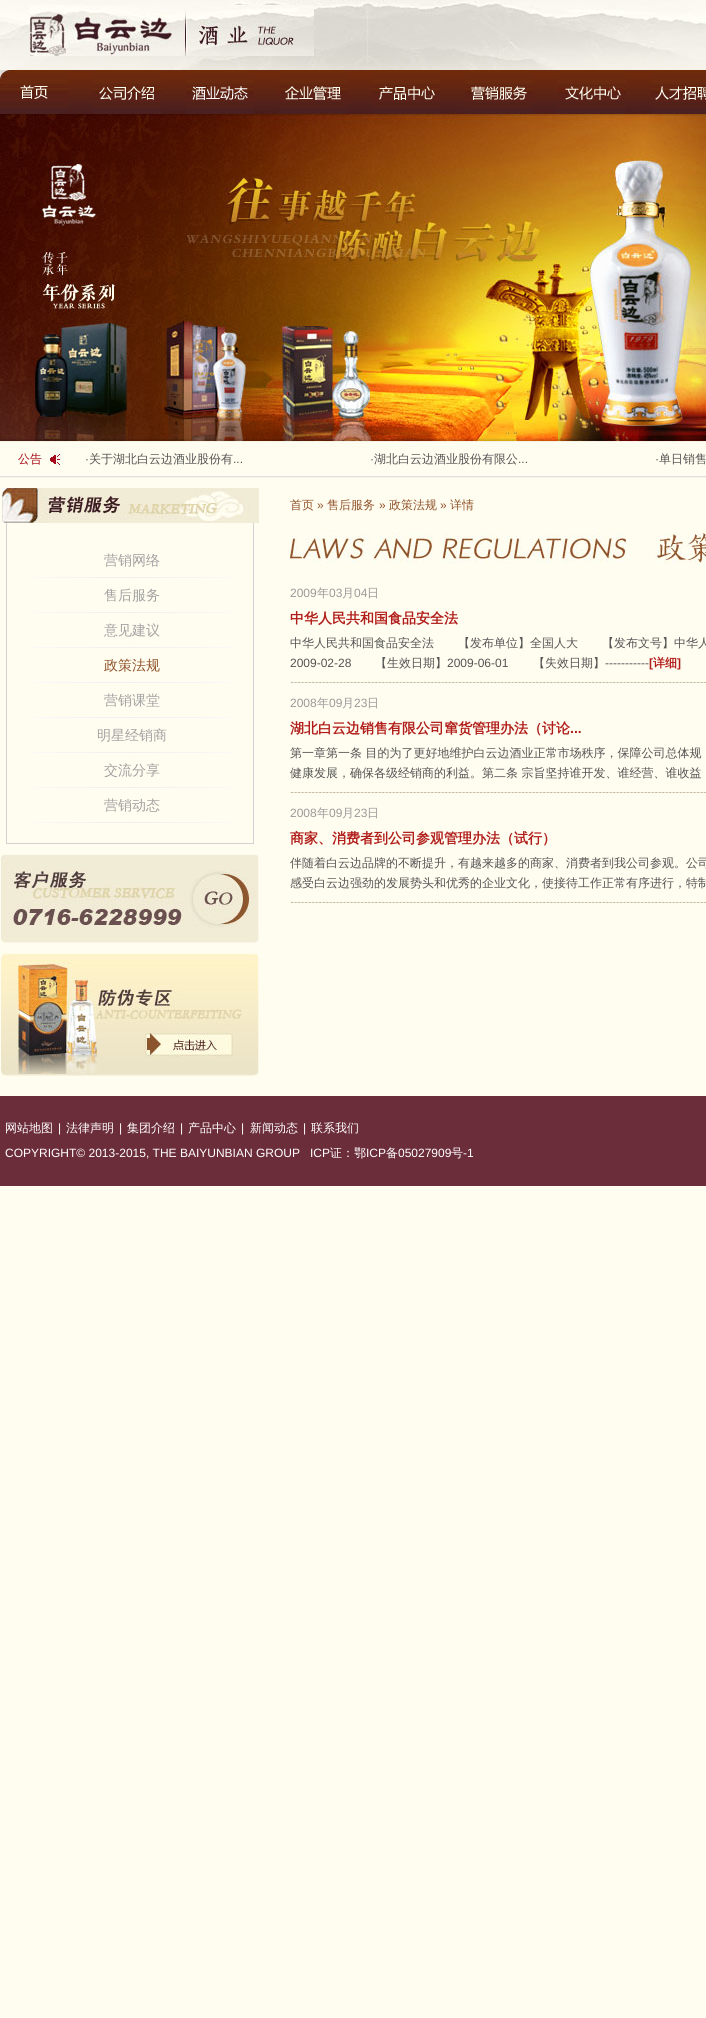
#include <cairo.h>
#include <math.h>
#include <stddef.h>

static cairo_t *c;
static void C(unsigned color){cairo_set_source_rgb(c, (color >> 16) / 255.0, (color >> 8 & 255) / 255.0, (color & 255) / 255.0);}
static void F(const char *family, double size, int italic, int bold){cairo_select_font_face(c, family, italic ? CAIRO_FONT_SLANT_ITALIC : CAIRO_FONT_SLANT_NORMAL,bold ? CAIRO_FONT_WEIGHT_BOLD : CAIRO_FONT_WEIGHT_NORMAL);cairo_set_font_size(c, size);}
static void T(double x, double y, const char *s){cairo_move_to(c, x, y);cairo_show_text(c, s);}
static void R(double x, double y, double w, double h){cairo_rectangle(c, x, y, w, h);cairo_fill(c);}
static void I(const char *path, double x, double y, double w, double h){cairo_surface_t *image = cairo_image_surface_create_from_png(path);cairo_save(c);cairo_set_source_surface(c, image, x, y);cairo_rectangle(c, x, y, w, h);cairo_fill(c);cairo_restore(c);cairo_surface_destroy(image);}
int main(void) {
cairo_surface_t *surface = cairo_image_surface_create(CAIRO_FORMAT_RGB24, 706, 2018);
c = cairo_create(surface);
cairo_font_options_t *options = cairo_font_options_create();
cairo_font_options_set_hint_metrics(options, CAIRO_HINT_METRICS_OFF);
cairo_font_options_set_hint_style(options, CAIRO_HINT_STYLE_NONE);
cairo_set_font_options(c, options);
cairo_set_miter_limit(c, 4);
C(0xfffdf0);
cairo_paint(c);
I("1.png",0,0,706,70);
I("2.png",30,5,284,51);
I("3.png",68,70,583,44);
I("4.png",0,70,68,44);
I("5.png",93,70,68,44);
I("6.png",186,70,68,44);
I("7.png",279,70,68,44);
I("8.png",372,70,68,44);
I("9.png",465,70,68,44);
I("10.png",558,70,68,44);
I("11.png",651,70,55,44);
I("12.png",0,114,706,327);
I("13.png",0,441,706,37);
I("14.png",50,454,10,11);
F("WenQuanYi Zen Hei Medium",12,0,0);
C(0xa60c1a);
T(18,463,"公告");
F("Liberation Sans",12,0,0);
C(0x535353);
T(85,463,"·");
F("WenQuanYi Zen Hei Medium",12,0,0);
T(89,463,"关于湖北白云边酒业股份有");
F("Liberation Sans",12,0,0);
T(233,463,"...");
T(370,463,"·");
F("WenQuanYi Zen Hei Medium",12,0,0);
T(374,463,"湖北白云边酒业股份有限公");
F("Liberation Sans",12,0,0);
T(518,463,"...");
T(655,463,"·");
F("WenQuanYi Zen Hei Medium",12,0,0);
T(659,463,"单日销售");
I("15.png",2,488,257,35);
C(0xd3d2d2);
R(253,523,1,321);
R(6,843,248,1);
R(6,523,1,321);
I("16.png",34,577,197,1);
F("WenQuanYi Zen Hei Medium",14,0,0);
C(0xa1a1a1);
T(104,565,"营销网络");
I("16.png",34,612,197,1);
T(104,600,"售后服务");
I("16.png",34,647,197,1);
T(104,635,"意见建议");
I("16.png",34,682,197,1);
C(0x90532a);
T(104,670,"政策法规");
I("16.png",34,717,197,1);
C(0xa1a1a1);
T(104,705,"营销课堂");
I("16.png",34,752,197,1);
T(97,740,"明星经销商");
I("16.png",34,787,197,1);
T(104,775,"交流分享");
I("16.png",34,822,197,1);
T(104,810,"营销动态");
I("17.png",0,854,259,89);
I("18.png",1,953,258,123);
F("WenQuanYi Zen Hei Medium",12,0,0);
C(0x90532a);
T(290,509,"首页");
F("Liberation Sans",12,0,0);
T(317,509,"»");
F("WenQuanYi Zen Hei Medium",12,0,0);
T(327,509,"售后服务");
F("Liberation Sans",12,0,0);
T(379,509,"»");
F("WenQuanYi Zen Hei Medium",12,0,0);
T(389,509,"政策法规");
F("Liberation Sans",12,0,0);
T(440,509,"»");
F("WenQuanYi Zen Hei Medium",12,0,0);
T(450,509,"详情");
I("19.png",290,533,416,30);
I("20.png",290,682,416,1);
F("Liberation Sans",12,0,0);
C(0x999999);
T(290,597,"2009");
F("WenQuanYi Zen Hei Medium",12,0,0);
T(317,597,"年");
F("Liberation Sans",12,0,0);
T(329,597,"03");
F("WenQuanYi Zen Hei Medium",12,0,0);
T(342,597,"月");
F("Liberation Sans",12,0,0);
T(354,597,"04");
F("WenQuanYi Zen Hei Medium",12,0,0);
T(367,597,"日");
F("WenQuanYi Zen Hei",14,0,1);
C(0xb11d1a);
T(290,623,"中华人民共和国食品安全法");
F("WenQuanYi Zen Hei Medium",12,0,0);
C(0x535353);
T(290,647,"中华人民共和国食品安全法　　【发布单位】全国人大　　【发布文号】中华人");
F("Liberation Sans",12,0,0);
T(290,667,"2009-02-28");
F("WenQuanYi Zen Hei Medium",12,0,0);
T(375,667,"【生效日期】");
F("Liberation Sans",12,0,0);
T(447,667,"2009-06-01");
F("WenQuanYi Zen Hei Medium",12,0,0);
T(533,667,"【失效日期】");
F("Liberation Sans",12,0,0);
T(605,667,"-----------");
F("Liberation Sans",12,0,1);
C(0xb11d1a);
T(649,667,"[");
F("WenQuanYi Zen Hei",12,0,1);
T(653,667,"详细");
F("Liberation Sans",12,0,1);
T(677,667,"]");
I("20.png",290,792,416,1);
F("Liberation Sans",12,0,0);
C(0x999999);
T(290,707,"2008");
F("WenQuanYi Zen Hei Medium",12,0,0);
T(317,707,"年");
F("Liberation Sans",12,0,0);
T(329,707,"09");
F("WenQuanYi Zen Hei Medium",12,0,0);
T(342,707,"月");
F("Liberation Sans",12,0,0);
T(354,707,"23");
F("WenQuanYi Zen Hei Medium",12,0,0);
T(367,707,"日");
F("WenQuanYi Zen Hei",14,0,1);
C(0xb11d1a);
T(290,733,"湖北白云边销售有限公司窜货管理办法（讨论");
F("Liberation Sans",14,0,1);
T(570,733,"...");
F("WenQuanYi Zen Hei Medium",12,0,0);
C(0x535353);
T(290,757,"第一章第一条 目的为了更好地维护白云边酒业正常市场秩序，保障公司总体规");
T(290,777,"健康发展，确保各级经销商的利益。第二条 宗旨坚持谁开发、谁经营、谁收益");
I("20.png",290,902,416,1);
F("Liberation Sans",12,0,0);
C(0x999999);
T(290,817,"2008");
F("WenQuanYi Zen Hei Medium",12,0,0);
T(317,817,"年");
F("Liberation Sans",12,0,0);
T(329,817,"09");
F("WenQuanYi Zen Hei Medium",12,0,0);
T(342,817,"月");
F("Liberation Sans",12,0,0);
T(354,817,"23");
F("WenQuanYi Zen Hei Medium",12,0,0);
T(367,817,"日");
F("WenQuanYi Zen Hei",14,0,1);
C(0xb11d1a);
T(290,843,"商家、消费者到公司参观管理办法（试行）");
F("WenQuanYi Zen Hei Medium",12,0,0);
C(0x535353);
T(290,867,"伴随着白云边品牌的不断提升，有越来越多的商家、消费者到我公司参观。公司");
T(290,887,"感受白云边强劲的发展势头和优秀的企业文化，使接待工作正常有序进行，特制");
C(0x6c2d3b);
R(0,1096,706,90);
C(0xffffff);
T(5,1132,"网站地图");
F("Liberation Sans",12,0,0);
T(58,1132,"|");
F("WenQuanYi Zen Hei Medium",12,0,0);
T(66,1132,"法律声明");
F("Liberation Sans",12,0,0);
T(119,1132,"|");
F("WenQuanYi Zen Hei Medium",12,0,0);
T(127,1132,"集团介绍");
F("Liberation Sans",12,0,0);
T(180,1132,"|");
F("WenQuanYi Zen Hei Medium",12,0,0);
T(188,1132,"产品中心");
F("Liberation Sans",12,0,0);
T(241,1132,"|");
F("WenQuanYi Zen Hei Medium",12,0,0);
T(250,1132,"新闻动态");
F("Liberation Sans",12,0,0);
T(303,1132,"|");
F("WenQuanYi Zen Hei Medium",12,0,0);
T(311,1132,"联系我们");
F("Liberation Sans",12,0,0);
T(5,1157,"COPYRIGHT© 2013-2015, THE BAIYUNBIAN GROUP");
T(310,1157,"ICP");
F("WenQuanYi Zen Hei Medium",12,0,0);
T(330,1157,"证：鄂");
F("Liberation Sans",12,0,0);
T(366,1157,"ICP");
F("WenQuanYi Zen Hei Medium",12,0,0);
T(386,1157,"备");
F("Liberation Sans",12,0,0);
T(398,1157,"05027909");
F("WenQuanYi Zen Hei Medium",12,0,0);
T(451,1157,"号");
F("Liberation Sans",12,0,0);
T(463,1157,"-1");
cairo_surface_write_to_png(surface, "o.png");
cairo_font_options_destroy(options);
cairo_destroy(c);
cairo_surface_destroy(surface);
return 0;
}
